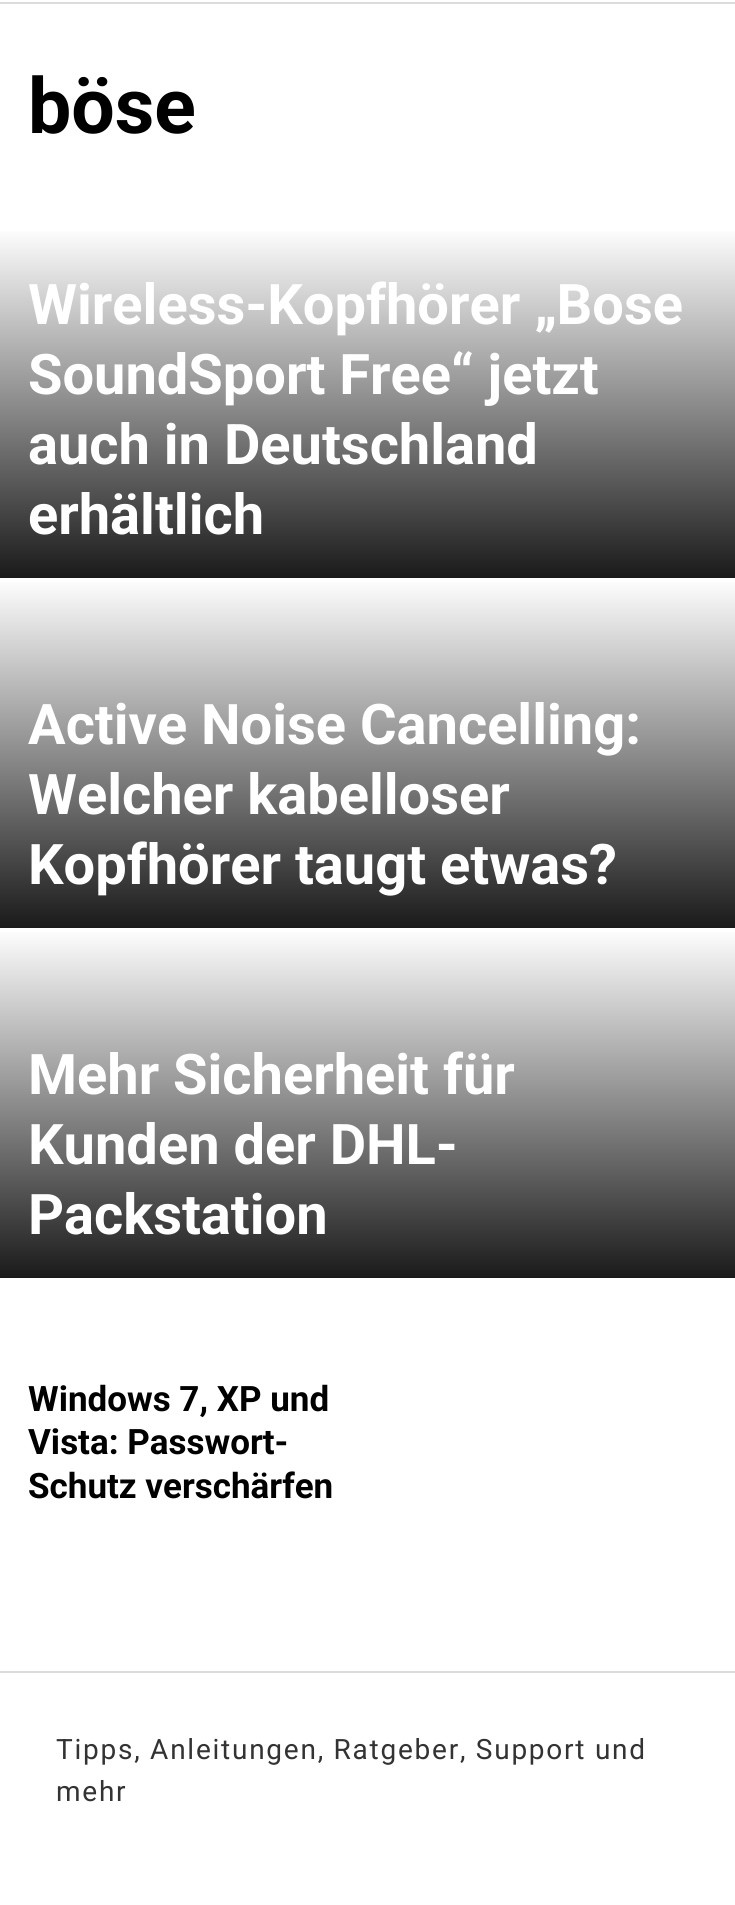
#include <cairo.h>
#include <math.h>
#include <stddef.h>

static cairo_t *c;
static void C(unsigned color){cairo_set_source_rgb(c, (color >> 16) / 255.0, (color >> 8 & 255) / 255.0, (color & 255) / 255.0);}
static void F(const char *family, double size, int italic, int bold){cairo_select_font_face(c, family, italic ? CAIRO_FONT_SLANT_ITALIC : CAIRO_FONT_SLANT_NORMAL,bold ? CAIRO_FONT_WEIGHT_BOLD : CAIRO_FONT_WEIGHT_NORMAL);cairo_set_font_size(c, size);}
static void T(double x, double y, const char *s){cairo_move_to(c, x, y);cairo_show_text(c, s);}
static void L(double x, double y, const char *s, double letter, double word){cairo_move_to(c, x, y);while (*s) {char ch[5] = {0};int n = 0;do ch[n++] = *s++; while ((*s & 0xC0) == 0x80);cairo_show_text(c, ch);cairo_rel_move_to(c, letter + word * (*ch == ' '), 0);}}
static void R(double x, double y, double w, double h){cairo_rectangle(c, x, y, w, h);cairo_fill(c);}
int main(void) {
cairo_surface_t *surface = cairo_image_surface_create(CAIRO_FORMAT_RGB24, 735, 1905);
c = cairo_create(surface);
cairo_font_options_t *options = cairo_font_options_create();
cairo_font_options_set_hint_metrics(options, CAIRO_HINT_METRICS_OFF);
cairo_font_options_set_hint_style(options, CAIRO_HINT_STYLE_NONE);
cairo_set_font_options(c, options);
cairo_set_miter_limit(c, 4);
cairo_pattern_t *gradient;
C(0xffffff);
cairo_paint(c);
C(0xdbdbdb);
R(0,2,735,2);
F("Roboto",77,0,1);
C(0x000000);
T(28,133,"böse");
gradient = cairo_pattern_create_linear(368,227,368,578);
cairo_pattern_add_color_stop_rgba(gradient,0,1,1,1,1);
cairo_pattern_add_color_stop_rgba(gradient,1,0.102,0.102,0.102,1);
cairo_set_source(c,gradient);
cairo_pattern_destroy(gradient);
R(0,231,735,347);
F("Roboto",56,0,1);
C(0xffffff);
T(28,324,"Wireless-Kopfhörer „Bose");
T(28,394,"SoundSport Free“ jetzt");
T(28,464,"auch in Deutschland");
T(28,534,"erhältlich");
gradient = cairo_pattern_create_linear(368,578,368,928);
cairo_pattern_add_color_stop_rgba(gradient,0,1,1,1,1);
cairo_pattern_add_color_stop_rgba(gradient,1,0.102,0.102,0.102,1);
cairo_set_source(c,gradient);
cairo_pattern_destroy(gradient);
R(0,582,735,346);
C(0xffffff);
T(28,744,"Active Noise Cancelling:");
T(28,814,"Welcher kabelloser");
T(28,884,"Kopfhörer taugt etwas?");
gradient = cairo_pattern_create_linear(368,928,368,1278);
cairo_pattern_add_color_stop_rgba(gradient,0,1,1,1,1);
cairo_pattern_add_color_stop_rgba(gradient,1,0.102,0.102,0.102,1);
cairo_set_source(c,gradient);
cairo_pattern_destroy(gradient);
R(0,932,735,346);
C(0xffffff);
T(28,1094,"Mehr Sicherheit für");
T(28,1164,"Kunden der DHL-");
T(28,1234,"Packstation");
F("Roboto",35,0,1);
C(0x000000);
T(28,1411,"Windows 7, XP und");
T(28,1454,"Vista: Passwort-");
T(28,1498,"Schutz verschärfen");
C(0xdbdbdb);
R(0,1671,735,2);
F("Roboto",28,0,0);
C(0x333333);
L(56,1759,"Tipps, Anleitungen, Ratgeber, Support und",1.75,0);
L(56,1801,"mehr",1.75,0);
cairo_surface_write_to_png(surface, "o.png");
cairo_font_options_destroy(options);
cairo_destroy(c);
cairo_surface_destroy(surface);
return 0;
}
